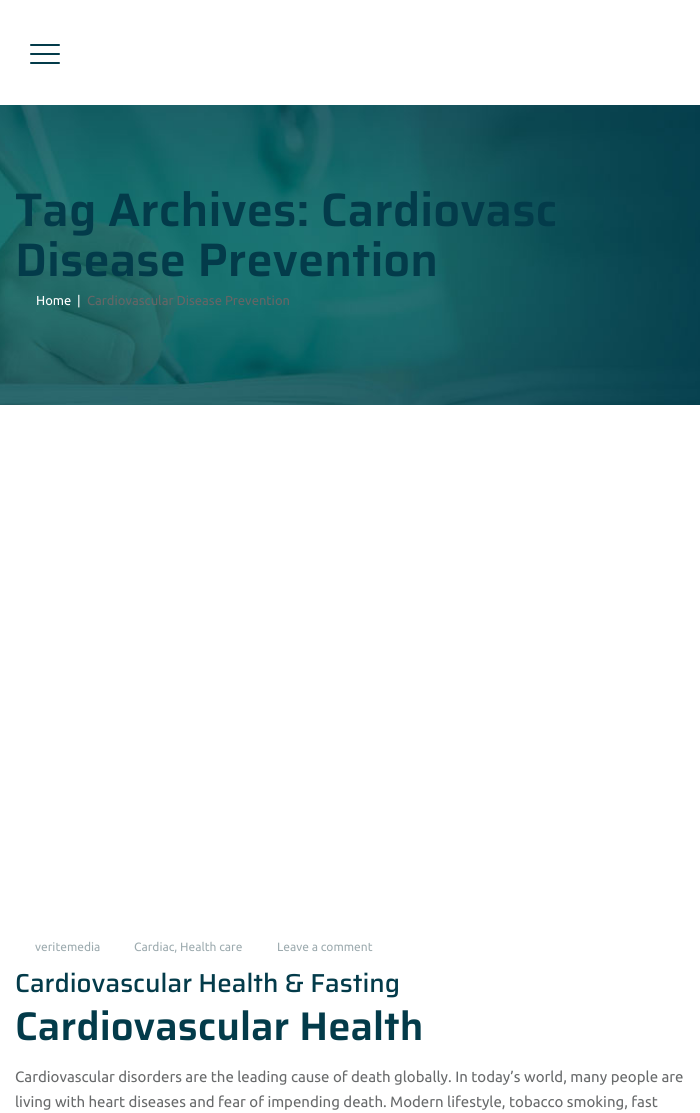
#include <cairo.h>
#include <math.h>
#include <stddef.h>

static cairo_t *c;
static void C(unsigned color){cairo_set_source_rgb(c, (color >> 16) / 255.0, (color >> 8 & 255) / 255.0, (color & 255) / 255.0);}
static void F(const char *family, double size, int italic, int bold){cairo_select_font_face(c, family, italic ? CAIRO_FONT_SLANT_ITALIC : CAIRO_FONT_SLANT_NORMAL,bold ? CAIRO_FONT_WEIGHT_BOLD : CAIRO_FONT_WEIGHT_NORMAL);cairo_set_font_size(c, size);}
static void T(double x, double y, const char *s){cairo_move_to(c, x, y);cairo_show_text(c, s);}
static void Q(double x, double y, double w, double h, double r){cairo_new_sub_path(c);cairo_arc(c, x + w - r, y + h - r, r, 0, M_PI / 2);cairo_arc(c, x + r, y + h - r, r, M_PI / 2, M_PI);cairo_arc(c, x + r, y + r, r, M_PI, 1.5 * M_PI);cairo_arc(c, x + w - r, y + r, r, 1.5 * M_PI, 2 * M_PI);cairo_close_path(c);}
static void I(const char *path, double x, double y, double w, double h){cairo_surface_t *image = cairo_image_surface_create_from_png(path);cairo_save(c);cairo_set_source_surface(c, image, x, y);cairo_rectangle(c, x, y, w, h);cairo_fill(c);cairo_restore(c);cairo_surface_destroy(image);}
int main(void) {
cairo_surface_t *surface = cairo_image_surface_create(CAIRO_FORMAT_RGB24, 700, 1113);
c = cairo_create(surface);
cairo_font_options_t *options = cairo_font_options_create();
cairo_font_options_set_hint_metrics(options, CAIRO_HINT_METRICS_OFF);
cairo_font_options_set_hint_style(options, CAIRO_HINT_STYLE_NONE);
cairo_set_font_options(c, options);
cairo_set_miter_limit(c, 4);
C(0xffffff);
cairo_paint(c);
C(0x033b4a);
Q(30,53,30,2,1);
cairo_fill(c);
Q(30,44,30,2,1);
cairo_fill(c);
Q(30,62,30,2,1);
cairo_fill(c);
I("1.png",0,105,700,300);
F("Saira SemiBold",47,0,0);
T(15,226,"Tag Archives: Cardiovasc");
T(15,276,"Disease Prevention");
F("Ubuntu",13,0,0);
C(0xffffff);
T(36,305,"Home");
T(77,305,"|");
C(0x656565);
T(87,305,"Cardiovascular Disease Prevention");
F("Ubuntu",12,0,0);
C(0x9dabaf);
T(35,951,"veritemedia");
T(134,951,"Cardiac, Health care");
T(277,951,"Leave a comment");
F("Saira Medium",26,0,0);
C(0x033b4a);
T(15,992,"Cardiovascular Health & Fasting");
F("Saira SemiBold",40,0,0);
T(15,1040,"Cardiovascular Health");
F("Ubuntu",15,0,0);
C(0x686a6b);
T(15,1082,"Cardiovascular disorders are the leading cause of death globally. In today’s world, many people are");
T(15,1107,"living with heart diseases and fear of impending death. Modern lifestyle, tobacco smoking, fast");
cairo_surface_write_to_png(surface, "o.png");
cairo_font_options_destroy(options);
cairo_destroy(c);
cairo_surface_destroy(surface);
return 0;
}
